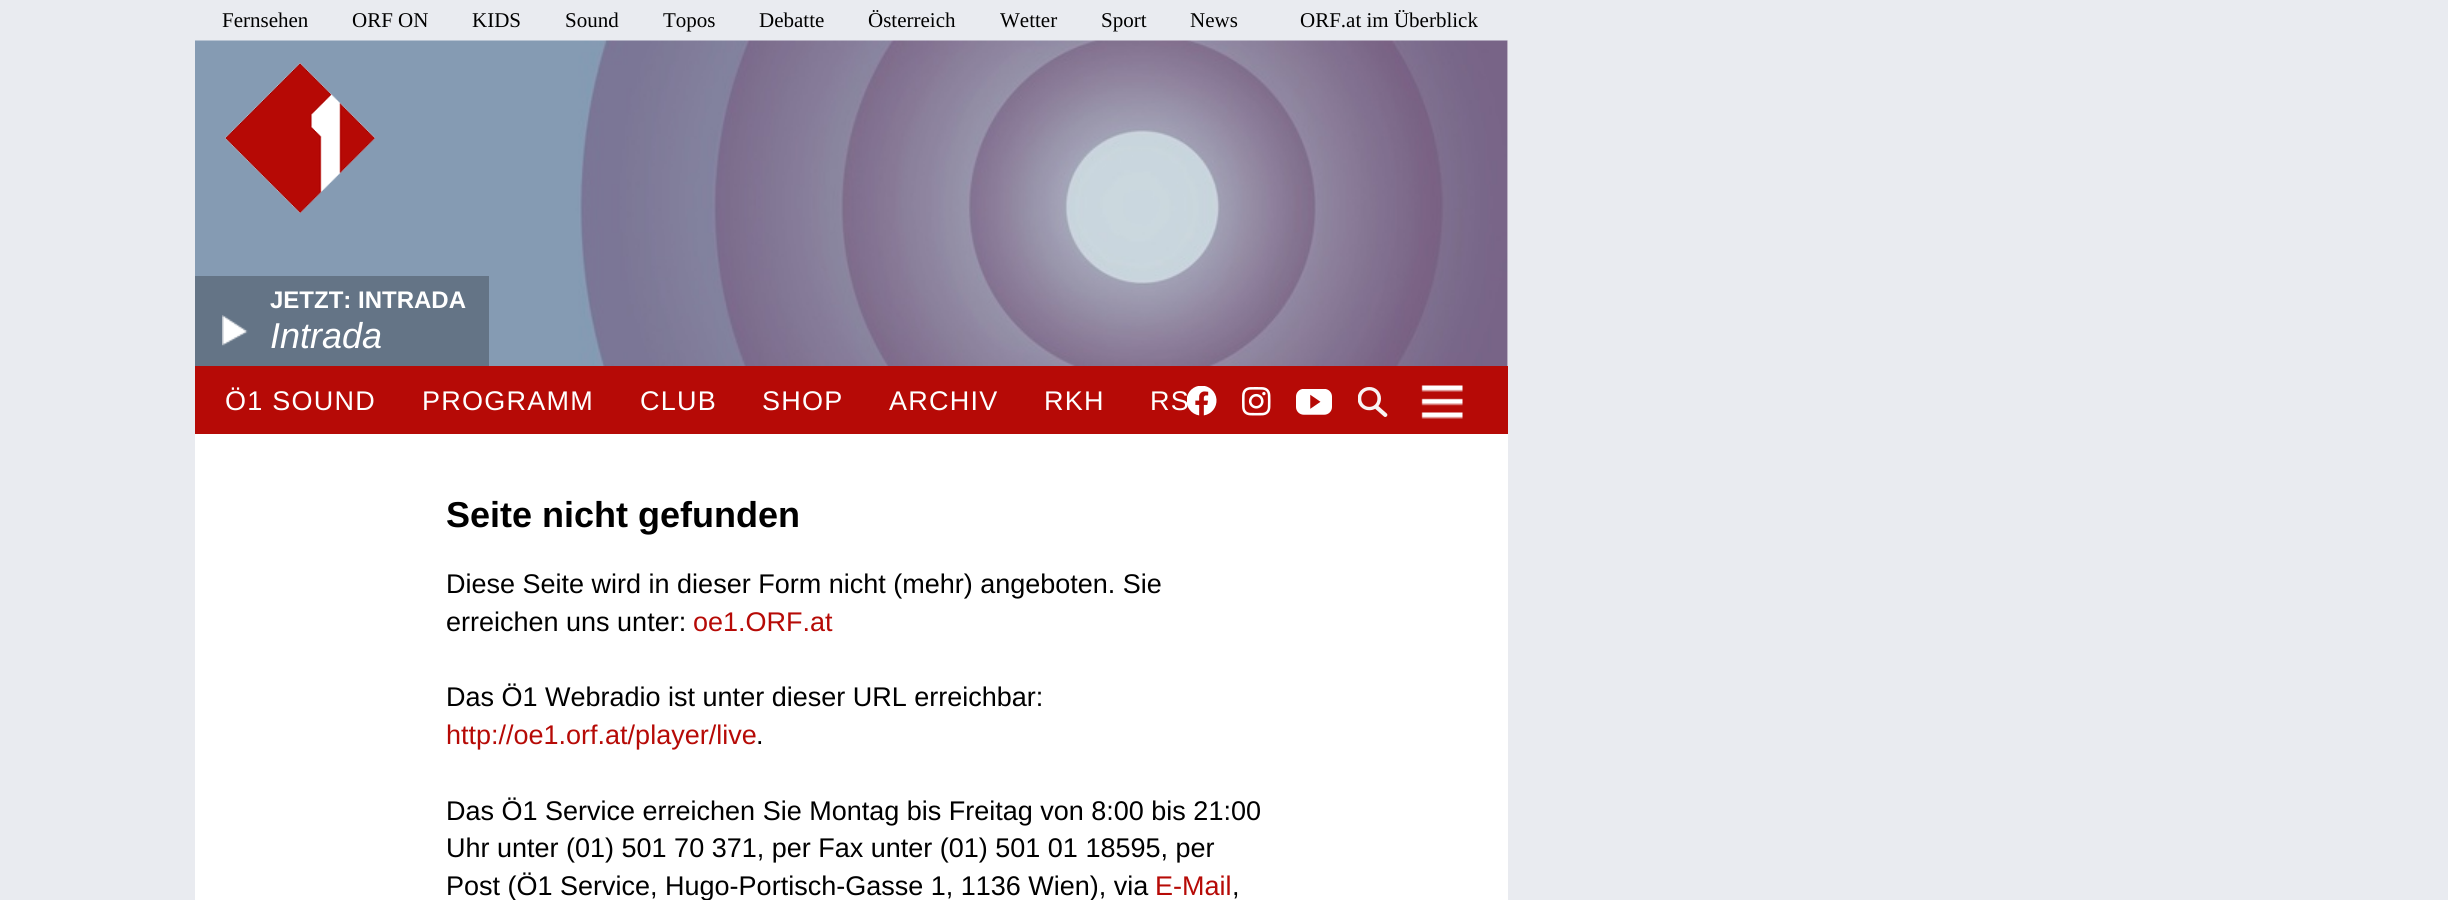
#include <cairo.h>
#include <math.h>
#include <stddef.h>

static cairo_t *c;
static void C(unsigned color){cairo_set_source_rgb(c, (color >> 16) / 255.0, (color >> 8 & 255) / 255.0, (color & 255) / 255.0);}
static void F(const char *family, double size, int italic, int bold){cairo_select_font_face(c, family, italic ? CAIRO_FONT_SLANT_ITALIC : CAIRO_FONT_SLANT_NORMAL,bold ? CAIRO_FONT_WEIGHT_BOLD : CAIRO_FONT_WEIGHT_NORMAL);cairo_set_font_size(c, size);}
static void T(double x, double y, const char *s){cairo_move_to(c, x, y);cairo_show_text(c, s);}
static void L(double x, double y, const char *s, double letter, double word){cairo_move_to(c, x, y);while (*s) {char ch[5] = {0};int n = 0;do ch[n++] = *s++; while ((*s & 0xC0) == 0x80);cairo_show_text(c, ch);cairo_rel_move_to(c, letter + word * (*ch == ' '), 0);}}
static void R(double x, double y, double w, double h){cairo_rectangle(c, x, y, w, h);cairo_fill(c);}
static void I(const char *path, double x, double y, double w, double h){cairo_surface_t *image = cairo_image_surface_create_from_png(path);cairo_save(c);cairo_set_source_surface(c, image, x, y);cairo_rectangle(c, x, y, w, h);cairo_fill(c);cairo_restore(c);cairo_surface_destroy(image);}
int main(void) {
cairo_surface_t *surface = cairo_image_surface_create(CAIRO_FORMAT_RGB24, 2448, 900);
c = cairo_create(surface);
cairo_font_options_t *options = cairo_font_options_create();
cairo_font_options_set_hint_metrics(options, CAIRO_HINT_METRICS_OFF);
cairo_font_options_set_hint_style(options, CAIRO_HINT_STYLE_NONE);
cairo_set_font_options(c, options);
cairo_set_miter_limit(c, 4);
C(0xe9ebf0);
cairo_paint(c);
C(0xffffff);
R(195,41,1313,859);
F("Liberation Serif",21,0,0);
C(0x000000);
T(222,27,"Fernsehen");
T(352,27,"ORF ON");
T(472,27,"KIDS");
T(565,27,"Sound");
T(663,27,"Topos");
T(759,27,"Debatte");
T(868,27,"Österreich");
T(1000,27,"Wetter");
T(1101,27,"Sport");
T(1190,27,"News");
T(1300,27,"ORF.at im Überblick");
I("2.png",195,40,1313,326);
I("1.png",225,63,150,150);
C(0x647486);
R(195,276,294,90);
F("Liberation Sans",24,0,1);
C(0xffffff);
T(270,308,"JETZT: INTRADA");
I("3.png",222,315,26,31);
F("Liberation Sans",36,1,0);
T(270,348,"Intrada");
C(0xb60a06);
R(195,366,1313,68);
F("Liberation Sans",27,0,0);
C(0xffffff);
L(225,410,"Ö1 SOUND",1.25,0);
L(422,410,"PROGRAMM",1.25,0);
L(640,410,"CLUB",1.25,0);
L(762,410,"SHOP",1.25,0);
L(889,410,"ARCHIV",1.25,0);
L(1044,410,"RKH",1.25,0);
L(1150,410,"RS",1.25,0);
I("4.png",1187,386,30,30);
I("5.png",1242,387,29,29);
I("6.png",1296,389,36,26);
I("7.png",1358,387,30,30);
I("8.png",1421,385,42,34);
F("Liberation Sans",36,0,1);
C(0x000000);
T(446,527,"Seite nicht gefunden");
F("Liberation Sans",27,0,0);
T(446,593,"Diese Seite wird in dieser Form nicht (mehr) angeboten. Sie");
T(446,631,"erreichen uns unter:");
C(0xb60a06);
T(693,631,"oe1.ORF.at");
C(0x000000);
T(446,706,"Das Ö1 Webradio ist unter dieser URL erreichbar:");
C(0xb60a06);
T(446,744,"http://oe1.orf.at/player/live");
C(0x000000);
T(756,744,".");
T(446,820,"Das Ö1 Service erreichen Sie Montag bis Freitag von 8:00 bis 21:00");
T(446,857,"Uhr unter (01) 501 70 371, per Fax unter (01) 501 01 18595, per");
T(446,895,"Post (Ö1 Service, Hugo-Portisch-Gasse 1, 1136 Wien), via");
C(0xb60a06);
T(1155,895,"E-Mail");
C(0x000000);
T(1232,895,",");
cairo_surface_write_to_png(surface, "o.png");
cairo_font_options_destroy(options);
cairo_destroy(c);
cairo_surface_destroy(surface);
return 0;
}
